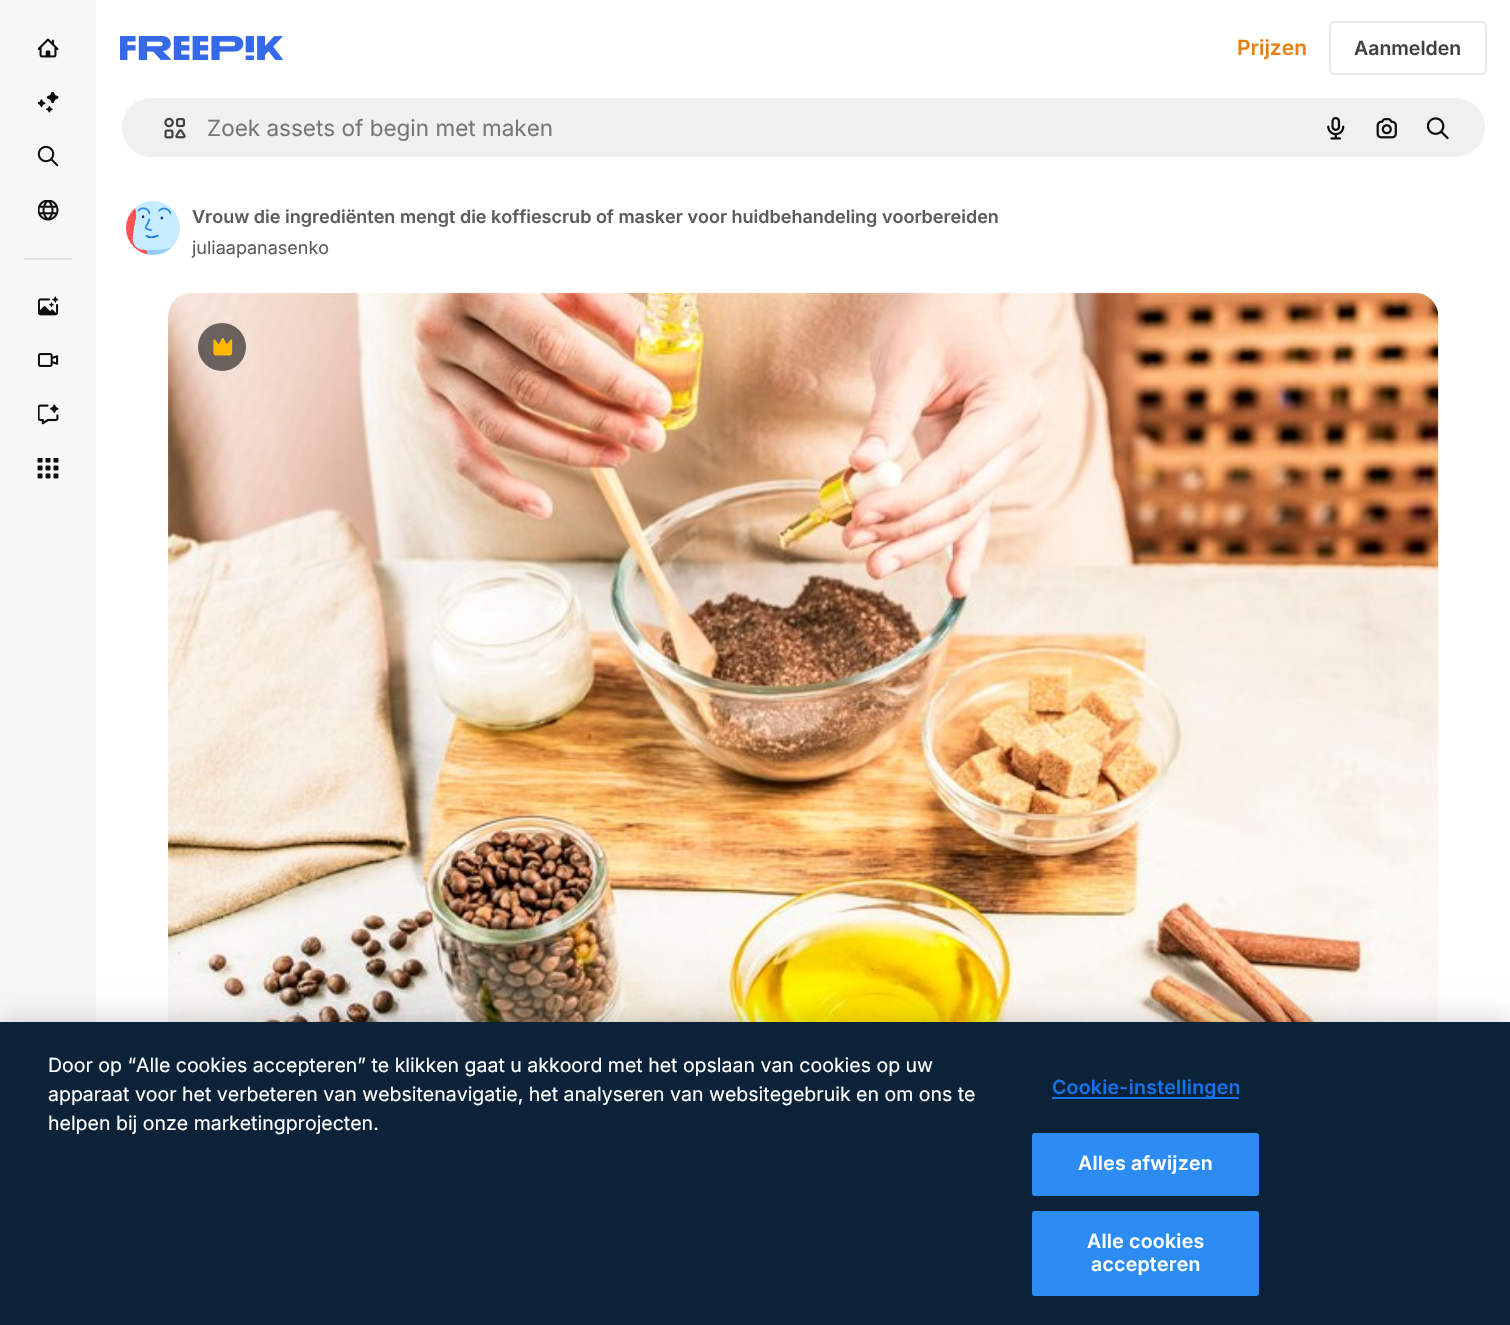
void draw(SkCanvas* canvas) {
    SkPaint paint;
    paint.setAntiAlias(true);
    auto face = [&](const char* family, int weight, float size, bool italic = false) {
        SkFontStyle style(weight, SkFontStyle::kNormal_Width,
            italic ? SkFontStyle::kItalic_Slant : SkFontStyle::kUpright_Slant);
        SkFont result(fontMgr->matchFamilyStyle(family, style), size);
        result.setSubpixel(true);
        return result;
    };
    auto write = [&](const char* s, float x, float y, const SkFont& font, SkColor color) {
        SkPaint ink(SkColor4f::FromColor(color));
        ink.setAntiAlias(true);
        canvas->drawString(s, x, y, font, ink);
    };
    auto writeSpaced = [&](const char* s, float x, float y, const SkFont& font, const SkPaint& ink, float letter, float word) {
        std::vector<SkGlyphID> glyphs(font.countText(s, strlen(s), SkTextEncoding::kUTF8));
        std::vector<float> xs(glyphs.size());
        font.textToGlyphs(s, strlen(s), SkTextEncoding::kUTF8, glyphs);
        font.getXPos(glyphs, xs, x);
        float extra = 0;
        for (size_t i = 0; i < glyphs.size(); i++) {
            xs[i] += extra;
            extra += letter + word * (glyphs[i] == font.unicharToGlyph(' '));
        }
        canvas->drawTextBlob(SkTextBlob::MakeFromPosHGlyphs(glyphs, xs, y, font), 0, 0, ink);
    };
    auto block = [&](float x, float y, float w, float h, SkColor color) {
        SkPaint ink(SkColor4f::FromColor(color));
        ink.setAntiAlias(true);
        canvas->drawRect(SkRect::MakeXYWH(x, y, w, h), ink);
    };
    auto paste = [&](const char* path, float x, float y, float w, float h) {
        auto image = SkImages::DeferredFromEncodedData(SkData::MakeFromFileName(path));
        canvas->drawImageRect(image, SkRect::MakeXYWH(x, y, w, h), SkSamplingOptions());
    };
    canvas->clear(SK_ColorWHITE);
    block(0, 0, 96, 1022, SkColorSetRGB(247, 247, 247));
    paste("pic1.png", 38, 38, 21, 20);
    paste("pic2.png", 38, 92, 21, 21);
    paste("pic3.png", 37, 146, 22, 21);
    paste("pic4.png", 38, 200, 21, 21);
    block(24, 258, 48, 2, SkColorSetRGB(224, 224, 224));
    paste("pic5.png", 38, 296, 21, 20);
    paste("pic6.png", 38, 353, 21, 14);
    paste("pic7.png", 38, 404, 21, 21);
    paste("pic8.png", 37, 458, 22, 21);
    paste("pic9.png", 120, 36, 163, 24);
    auto kFont1 = face("Inter", 600, 21);
    write("Prijzen", 1237, 55, kFont1, SkColorSetRGB(234, 126, 17));
    paint.setStyle(SkPaint::kStroke_Style);
    paint.setStrokeWidth(2);
    paint.setColor(SkColorSetRGB(231, 231, 231));
    canvas->drawRoundRect(SkRect::MakeXYWH(1330, 22, 156, 52), 5, 5, paint);
    auto kFont2 = face("Inter", 600, 19.5f);
    write("Aanmelden", 1354, 55, kFont2, SkColorSetRGB(66, 66, 66));
    paint.setStyle(SkPaint::kFill_Style);
    paint.setColor(SkColorSetRGB(240, 240, 240));
    canvas->drawRoundRect(SkRect::MakeXYWH(121, 97, 1365, 61), 30.5f, 30.5f, paint);
    paint.setStyle(SkPaint::kStroke_Style);
    paint.setColor(SK_ColorWHITE);
    canvas->drawRoundRect(SkRect::MakeXYWH(121, 97, 1365, 61), 30.5f, 30.5f, paint);
    paste("pic10.png", 164, 117, 22, 22);
    auto kFont3 = face("Inter", 400, 22.5f);
    write("Zoek assets of begin met maken", 207, 136, kFont3, SkColorSetRGB(119, 119, 119));
    paste("pic11.png", 1327, 117, 18, 23);
    paste("pic12.png", 1376, 118, 21, 21);
    paste("pic13.png", 1427, 117, 22, 23);
    paste("pic14.png", 126, 201, 54, 54);
    auto kFont4 = face("Inter", 600, 18);
    write("Vrouw die ingrediënten mengt die koffiescrub of masker voor huidbehandeling voorbereiden", 192, 223, kFont4, SkColorSetRGB(92, 92, 92));
    auto kFont5 = face("Inter", 400, 18);
    write("juliaapanasenko", 192, 254, kFont5, SkColorSetRGB(92, 92, 92));
    paste("pic15.png", 168, 292, 1271, 730);
    paint.setStyle(SkPaint::kFill_Style);
    paint.setColor(SkColorSetARGB(153, 13, 13, 13));
    canvas->drawCircle(222, 347, 24, paint);
    paste("pic16.png", 213, 338, 20, 18);
    paint.setColor(SkColorSetARGB(51, 0, 0, 0));
    paint.setMaskFilter(SkMaskFilter::MakeBlur(kNormal_SkBlurStyle, 13.5f));
    canvas->drawRect(SkRect::MakeXYWH(0, 1022, 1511, 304), paint);
    paint.setMaskFilter(nullptr);
    block(0, 1022, 1510, 303, SkColorSetRGB(11, 34, 57));
    auto kFont6 = face("Inter", 400, 19.5f);
    write("Door op “Alle cookies accepteren” te klikken gaat u akkoord met het opslaan van cookies op uw", 48, 1072, kFont6, SK_ColorWHITE);
    write("apparaat voor het verbeteren van websitenavigatie, het analyseren van websitegebruik en om ons te", 48, 1101, kFont6, SK_ColorWHITE);
    write("helpen bij onze marketingprojecten.", 48, 1130, kFont6, SK_ColorWHITE);
    block(1052, 1097, 187, 2, SkColorSetRGB(18, 115, 235));
    paint.setColor(SkColorSetRGB(18, 115, 235));
    writeSpaced("Cookie-instellingen", 1052, 1094, kFont2, paint, 0.25f, 0);
    paint.setColor(SkColorSetRGB(44, 140, 244));
    canvas->drawRoundRect(SkRect::MakeXYWH(1033, 1134, 225, 61), 2, 2, paint);
    paint.setStyle(SkPaint::kStroke_Style);
    canvas->drawRoundRect(SkRect::MakeXYWH(1033, 1134, 225, 61), 2, 2, paint);
    paint.setStyle(SkPaint::kFill_Style);
    paint.setColor(SK_ColorWHITE);
    writeSpaced("Alles afwijzen", 1078, 1170, kFont2, paint, 0.25f, 0);
    paint.setColor(SkColorSetRGB(44, 140, 244));
    canvas->drawRoundRect(SkRect::MakeXYWH(1033, 1212, 225, 83), 2, 2, paint);
    paint.setStyle(SkPaint::kStroke_Style);
    canvas->drawRoundRect(SkRect::MakeXYWH(1033, 1212, 225, 83), 2, 2, paint);
    paint.setStyle(SkPaint::kFill_Style);
    paint.setColor(SK_ColorWHITE);
    writeSpaced("Alle cookies", 1087, 1248, kFont2, paint, 0.25f, 0);
    writeSpaced("accepteren", 1091, 1271, kFont2, paint, 0.25f, 0);
}
